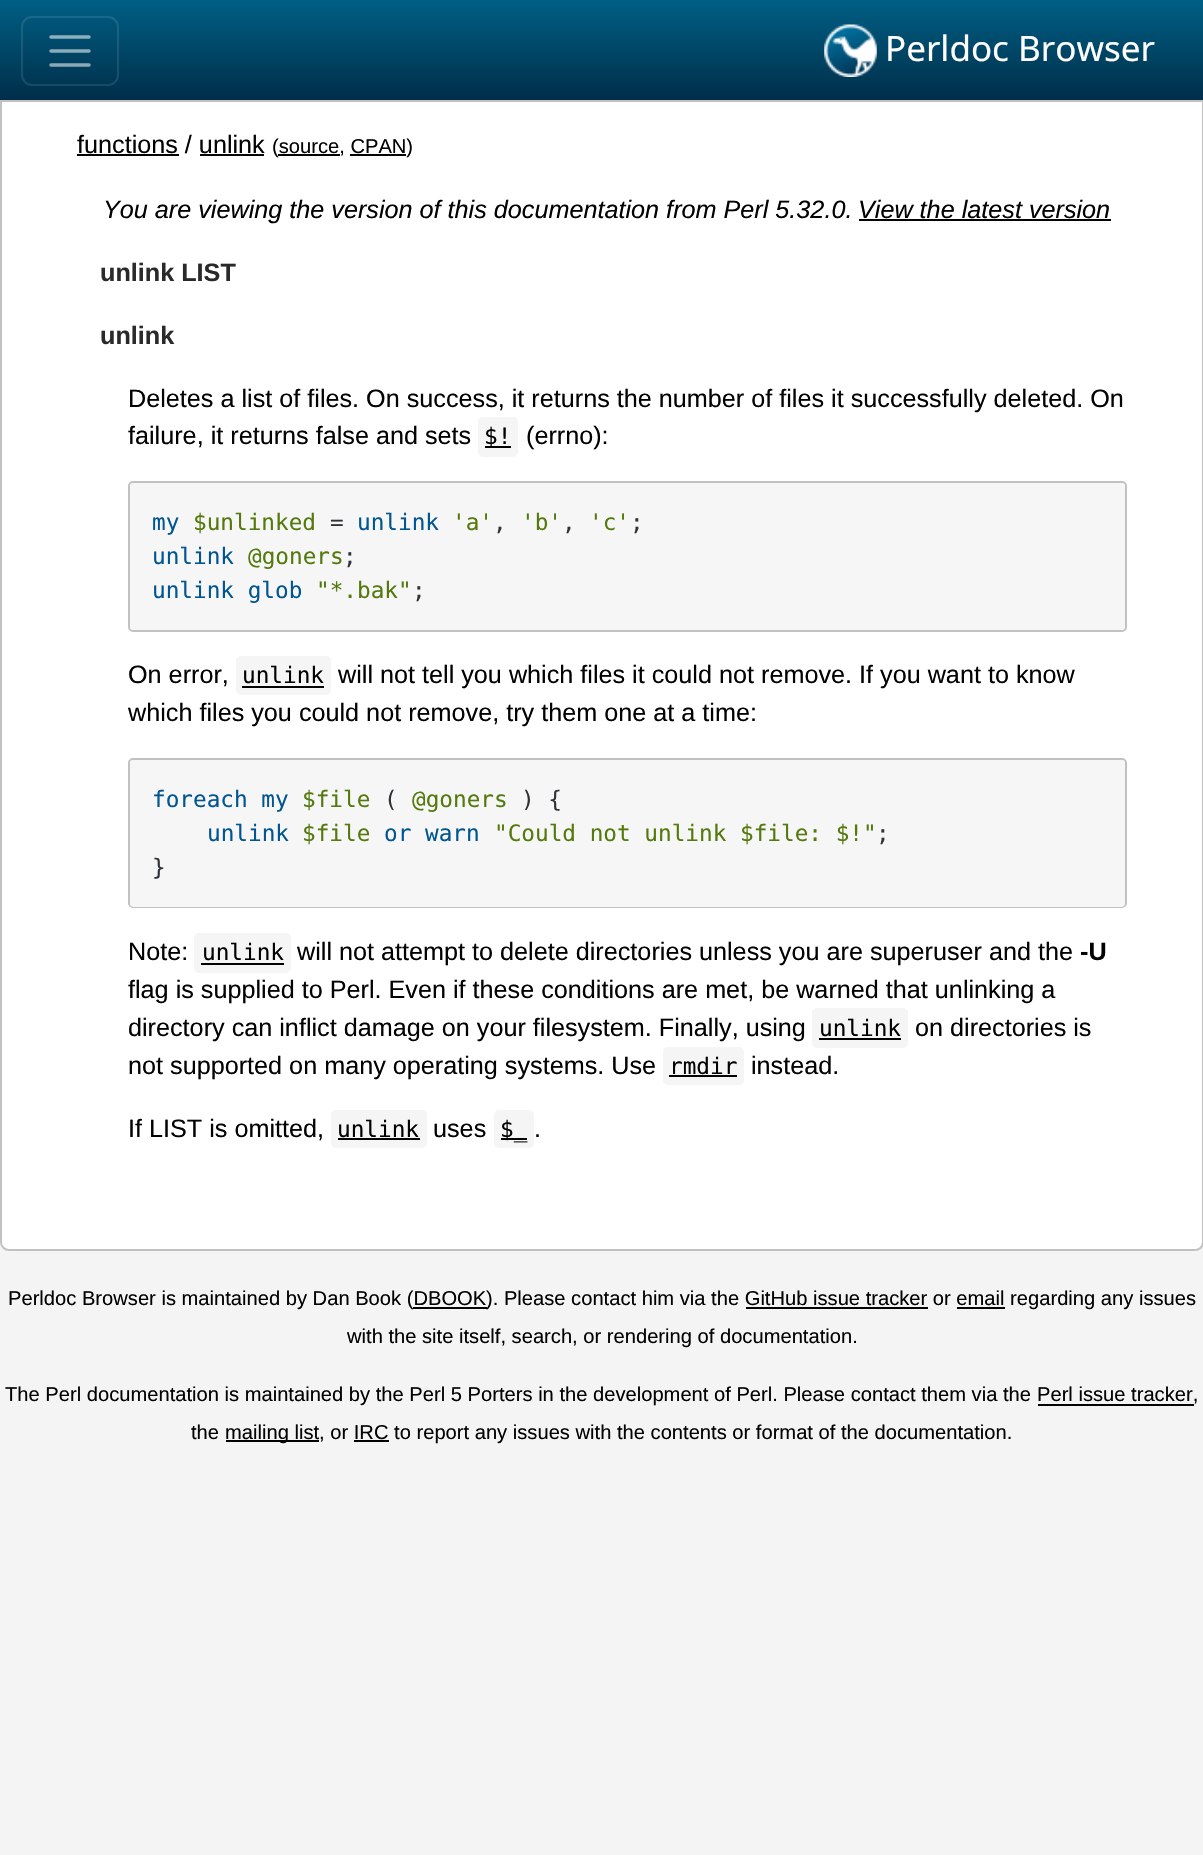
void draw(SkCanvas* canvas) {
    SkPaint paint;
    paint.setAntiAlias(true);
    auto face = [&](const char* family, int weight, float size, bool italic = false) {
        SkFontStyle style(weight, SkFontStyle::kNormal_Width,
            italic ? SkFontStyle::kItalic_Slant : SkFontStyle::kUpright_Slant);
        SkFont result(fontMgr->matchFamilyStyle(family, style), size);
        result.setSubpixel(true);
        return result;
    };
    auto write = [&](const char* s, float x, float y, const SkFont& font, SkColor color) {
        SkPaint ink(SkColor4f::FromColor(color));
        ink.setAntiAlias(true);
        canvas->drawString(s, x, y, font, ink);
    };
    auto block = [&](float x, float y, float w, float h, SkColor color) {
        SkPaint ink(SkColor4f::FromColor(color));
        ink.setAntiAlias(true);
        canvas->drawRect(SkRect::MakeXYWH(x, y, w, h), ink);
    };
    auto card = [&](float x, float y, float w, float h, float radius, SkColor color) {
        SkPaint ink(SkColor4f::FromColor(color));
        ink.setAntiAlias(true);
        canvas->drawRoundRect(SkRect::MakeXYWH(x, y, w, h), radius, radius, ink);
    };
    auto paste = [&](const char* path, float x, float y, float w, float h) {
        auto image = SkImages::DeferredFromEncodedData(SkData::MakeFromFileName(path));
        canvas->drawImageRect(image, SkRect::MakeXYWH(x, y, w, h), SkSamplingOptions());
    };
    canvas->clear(SkColorSetRGB(244, 244, 245));
    {
        const SkColor colors[] = {SkColorSetRGB(0, 95, 133), SkColorSetRGB(0, 46, 73)};
        const float stops[] = {0, 1};
        const SkPoint ends[] = {{602, 0}, {602, 100}};
        paint.setShader(SkGradientShader::MakeLinear(ends, colors, stops, 2, SkTileMode::kClamp));
        paint.setAlpha(255);
    }
    canvas->drawRect(SkRect::MakeXYWH(0, 0, 1203, 100), paint);
    paint.setStyle(SkPaint::kStroke_Style);
    paint.setStrokeWidth(2);
    paint.setShader(nullptr);
    paint.setColor(SkColorSetARGB(26, 255, 255, 255));
    canvas->drawRoundRect(SkRect::MakeXYWH(22, 17, 96, 68), 10, 10, paint);
    paint.setStrokeWidth(3.5f);
    paint.setStrokeCap(SkPaint::kRound_Cap);
    paint.setColor(SkColorSetARGB(140, 255, 255, 255));
    canvas->drawPath(SkPathBuilder().moveTo(51, 37).lineTo(89, 37).moveTo(51, 51).lineTo(89, 51).moveTo(51, 65).lineTo(89, 65).detach(), paint);
    paste("pic1.png", 824, 24, 53, 53);
    auto kFont1 = face("Noto Sans", 400, 35);
    write("Perldoc Browser", 885, 61, kFont1, SK_ColorWHITE);
    paint.setStyle(SkPaint::kFill_Style);
    paint.setColor(SK_ColorWHITE);
    canvas->drawPath(SkPathBuilder().moveTo(1, 101).lineTo(1203, 101).lineTo(1203, 1242).cubicTo(1203, 1246.5f, 1199.5f, 1250, 1195, 1250).lineTo(9, 1250).cubicTo(4.5f, 1250, 1, 1246.5f, 1, 1242).close().detach(), paint);
    paint.setStyle(SkPaint::kStroke_Style);
    paint.setStrokeWidth(2);
    paint.setStrokeCap(SkPaint::kButt_Cap);
    paint.setColor(SkColorSetRGB(193, 193, 193));
    canvas->drawPath(SkPathBuilder().moveTo(1, 101).lineTo(1203, 101).lineTo(1203, 1242).cubicTo(1203, 1246.5f, 1199.5f, 1250, 1195, 1250).lineTo(9, 1250).cubicTo(4.5f, 1250, 1, 1246.5f, 1, 1242).close().detach(), paint);
    auto kFont2 = face("Liberation Sans", 400, 25.2f);
    write("functions / unlink", 77, 153, kFont2, SkColorSetRGB(2, 2, 2));
    block(77, 154, 102, 2, SkColorSetRGB(2, 2, 2));
    auto kFont3 = face("Liberation Sans", 400, 20.15f);
    write("(source, CPAN)", 272, 153, kFont3, SkColorSetRGB(2, 2, 2));
    block(278, 154, 62, 2, SkColorSetRGB(2, 2, 2));
    block(350, 154, 56, 2, SkColorSetRGB(2, 2, 2));
    block(200, 154, 64, 2, SkColorSetRGB(2, 2, 2));
    auto kFont4 = face("Liberation Sans", 400, 25.2f, true);
    write("You are viewing the version of this documentation from Perl 5.32.0.", 103, 218, kFont4, SkColorSetRGB(2, 2, 2));
    write("View the latest version", 858, 218, kFont4, SkColorSetRGB(2, 2, 2));
    block(859, 219, 252, 2, SkColorSetRGB(2, 2, 2));
    auto kFont5 = face("Liberation Sans", 700, 25.2f);
    write("unlink LIST", 100, 281, kFont5, SkColorSetRGB(42, 42, 42));
    write("unlink", 100, 344, kFont5, SkColorSetRGB(42, 42, 42));
    write("Deletes a list of files. On success, it returns the number of files it successfully deleted. On", 128, 407, kFont2, SkColorSetRGB(2, 2, 2));
    write("failure, it returns false and sets", 128, 444, kFont2, SkColorSetRGB(2, 2, 2));
    card(478, 417, 40, 40, 5, SkColorSetRGB(245, 245, 245));
    block(485, 446, 26, 2, SkColorSetRGB(2, 2, 2));
    auto kFont6 = face("DejaVu Sans Mono", 400, 22.7f);
    write("$!", 484, 444, kFont6, SkColorSetRGB(2, 2, 2));
    write("(errno):", 526, 444, kFont2, SkColorSetRGB(2, 2, 2));
    canvas->drawRoundRect(SkRect::MakeXYWH(129, 482, 997, 149), 4, 4, paint);
    card(130, 483, 995, 147, 4, SkColorSetRGB(246, 246, 246));
    write("my", 152, 530, kFont6, SkColorSetRGB(1, 86, 146));
    write("$unlinked", 193, 530, kFont6, SkColorSetRGB(84, 121, 13));
    write("=", 330, 530, kFont6, SkColorSetRGB(47, 51, 55));
    write("unlink", 357, 530, kFont6, SkColorSetRGB(1, 86, 146));
    write("'a'", 452, 530, kFont6, SkColorSetRGB(84, 121, 13));
    write("'b'", 521, 530, kFont6, SkColorSetRGB(84, 121, 13));
    write("'c'", 589, 530, kFont6, SkColorSetRGB(84, 121, 13));
    write(";", 630, 530, kFont6, SkColorSetRGB(47, 51, 55));
    write(",", 493, 530, kFont6, SkColorSetRGB(47, 51, 55));
    write(",", 562, 530, kFont6, SkColorSetRGB(47, 51, 55));
    write("unlink", 152, 564, kFont6, SkColorSetRGB(1, 86, 146));
    write("@goners", 248, 564, kFont6, SkColorSetRGB(84, 121, 13));
    write(";", 343, 564, kFont6, SkColorSetRGB(47, 51, 55));
    write("unlink glob", 152, 598, kFont6, SkColorSetRGB(1, 86, 146));
    write("\"*.bak\"", 316, 598, kFont6, SkColorSetRGB(84, 121, 13));
    write(";", 412, 598, kFont6, SkColorSetRGB(47, 51, 55));
    write("On error,", 128, 683, kFont2, SkColorSetRGB(2, 2, 2));
    card(236, 656, 95, 39, 5, SkColorSetRGB(245, 245, 245));
    write("unlink", 242, 683, kFont6, SkColorSetRGB(2, 2, 2));
    block(242, 686, 82, 2, SkColorSetRGB(2, 2, 2));
    write("will not tell you which files it could not remove. If you want to know", 338, 683, kFont2, SkColorSetRGB(2, 2, 2));
    write("which files you could not remove, try them one at a time:", 128, 721, kFont2, SkColorSetRGB(2, 2, 2));
    canvas->drawRoundRect(SkRect::MakeXYWH(129, 759, 997, 148), 4, 4, paint);
    card(130, 760, 995, 147, 4, SkColorSetRGB(246, 246, 246));
    write("foreach my", 152, 807, kFont6, SkColorSetRGB(1, 86, 146));
    write("$file", 302, 807, kFont6, SkColorSetRGB(84, 121, 13));
    write("(", 384, 807, kFont6, SkColorSetRGB(47, 51, 55));
    write("@goners", 412, 807, kFont6, SkColorSetRGB(84, 121, 13));
    write(") {", 521, 807, kFont6, SkColorSetRGB(47, 51, 55));
    write("unlink", 207, 841, kFont6, SkColorSetRGB(1, 86, 146));
    write("$file", 302, 841, kFont6, SkColorSetRGB(84, 121, 13));
    write("or warn", 384, 841, kFont6, SkColorSetRGB(1, 86, 146));
    write("\"Could not unlink $file: $!\"", 494, 841, kFont6, SkColorSetRGB(84, 121, 13));
    write(";", 876, 841, kFont6, SkColorSetRGB(47, 51, 55));
    write("}", 152, 875, kFont6, SkColorSetRGB(47, 51, 55));
    write("Note:", 128, 960, kFont2, SkColorSetRGB(2, 2, 2));
    card(194, 933, 97, 40, 5, SkColorSetRGB(245, 245, 245));
    write("unlink", 202, 960, kFont6, SkColorSetRGB(2, 2, 2));
    block(201, 963, 83, 2, SkColorSetRGB(2, 2, 2));
    write("will not attempt to delete directories unless you are superuser and the", 297, 960, kFont2, SkColorSetRGB(2, 2, 2));
    write("-U", 1080, 960, kFont5, SkColorSetRGB(2, 2, 2));
    write("flag is supplied to Perl. Even if these conditions are met, be warned that unlinking a", 128, 998, kFont2, SkColorSetRGB(2, 2, 2));
    write("directory can inflict damage on your filesystem. Finally, using", 128, 1036, kFont2, SkColorSetRGB(2, 2, 2));
    card(812, 1008, 96, 40, 5, SkColorSetRGB(245, 245, 245));
    write("unlink", 819, 1036, kFont6, SkColorSetRGB(2, 2, 2));
    block(819, 1038, 82, 2, SkColorSetRGB(2, 2, 2));
    write("on directories is", 915, 1036, kFont2, SkColorSetRGB(2, 2, 2));
    write("not supported on many operating systems. Use", 128, 1074, kFont2, SkColorSetRGB(2, 2, 2));
    card(663, 1047, 81, 38, 5, SkColorSetRGB(245, 245, 245));
    write("rmdir", 669, 1074, kFont6, SkColorSetRGB(2, 2, 2));
    block(669, 1075, 68, 2, SkColorSetRGB(2, 2, 2));
    write("instead.", 751, 1074, kFont2, SkColorSetRGB(2, 2, 2));
    write("If LIST is omitted,", 128, 1137, kFont2, SkColorSetRGB(2, 2, 2));
    card(331, 1110, 96, 38, 5, SkColorSetRGB(245, 245, 245));
    write("unlink", 337, 1137, kFont6, SkColorSetRGB(2, 2, 2));
    block(338, 1138, 82, 2, SkColorSetRGB(2, 2, 2));
    write("uses", 433, 1137, kFont2, SkColorSetRGB(2, 2, 2));
    card(494, 1110, 40, 38, 5, SkColorSetRGB(245, 245, 245));
    block(501, 1138, 26, 2, SkColorSetRGB(2, 2, 2));
    write("$_", 500, 1137, kFont6, SkColorSetRGB(2, 2, 2));
    write(".", 534, 1137, kFont2, SkColorSetRGB(2, 2, 2));
    write("Perldoc Browser is maintained by Dan Book (DBOOK", 8, 1305, kFont3, SkColorSetRGB(2, 2, 2));
    block(413, 1307, 74, 2, SkColorSetRGB(2, 2, 2));
    write("). Please contact him via the GitHub issue tracker or email regarding any issues", 486, 1305, kFont3, SkColorSetRGB(2, 2, 2));
    block(746, 1307, 182, 2, SkColorSetRGB(2, 2, 2));
    block(957, 1307, 48, 2, SkColorSetRGB(2, 2, 2));
    write("with the site itself, search, or rendering of documentation.", 347, 1343, kFont3, SkColorSetRGB(2, 2, 2));
    write("The Perl documentation is maintained by the Perl 5 Porters in the development of Perl. Please contact them via the", 5, 1401, kFont3, SkColorSetRGB(2, 2, 2));
    write("Perl issue tracker,", 1037, 1401, kFont3, SkColorSetRGB(2, 2, 2));
    block(1038, 1404, 156, 2, SkColorSetRGB(2, 2, 2));
    write("the", 191, 1439, kFont3, SkColorSetRGB(2, 2, 2));
    block(226, 1440, 93, 2, SkColorSetRGB(2, 2, 2));
    write("mailing list, or IRC to report any issues with the contents or format of the documentation.", 225, 1439, kFont3, SkColorSetRGB(2, 2, 2));
    block(354, 1440, 35, 2, SkColorSetRGB(2, 2, 2));
}
